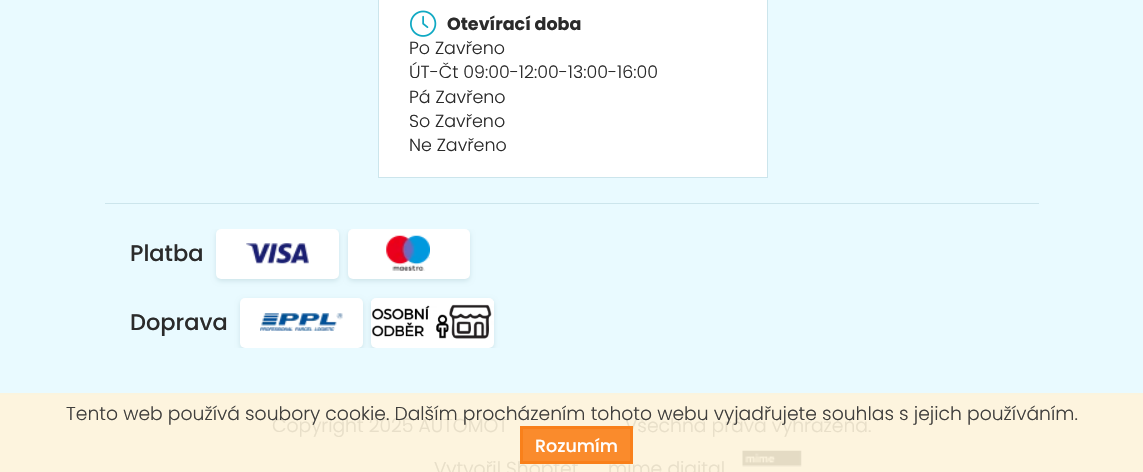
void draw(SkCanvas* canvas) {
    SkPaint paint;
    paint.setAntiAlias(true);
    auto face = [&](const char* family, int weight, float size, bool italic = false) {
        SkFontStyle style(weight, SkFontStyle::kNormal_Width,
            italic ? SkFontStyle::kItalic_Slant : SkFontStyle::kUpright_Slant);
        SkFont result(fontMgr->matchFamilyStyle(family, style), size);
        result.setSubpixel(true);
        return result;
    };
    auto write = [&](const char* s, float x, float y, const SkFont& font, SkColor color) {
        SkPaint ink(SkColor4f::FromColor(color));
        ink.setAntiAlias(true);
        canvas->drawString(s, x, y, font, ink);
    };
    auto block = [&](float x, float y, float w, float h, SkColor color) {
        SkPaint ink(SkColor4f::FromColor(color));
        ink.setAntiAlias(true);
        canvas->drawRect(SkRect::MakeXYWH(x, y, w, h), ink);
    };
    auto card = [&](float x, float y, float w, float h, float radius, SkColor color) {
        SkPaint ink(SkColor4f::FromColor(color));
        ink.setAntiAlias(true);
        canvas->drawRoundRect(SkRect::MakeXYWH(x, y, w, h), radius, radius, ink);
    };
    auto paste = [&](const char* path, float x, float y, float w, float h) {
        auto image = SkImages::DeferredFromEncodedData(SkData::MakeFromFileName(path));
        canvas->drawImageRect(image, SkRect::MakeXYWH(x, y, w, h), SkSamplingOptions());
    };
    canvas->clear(SkColorSetRGB(233, 250, 255));
    block(0, 393, 1143, 2, SkColorSetRGB(251, 244, 222));
    paint.setColor(SK_ColorWHITE);
    canvas->drawRect(SkRect::MakeXYWH(378.5f, -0.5f, 389, 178), paint);
    paint.setStyle(SkPaint::kStroke_Style);
    paint.setStrokeWidth(1);
    paint.setColor(SkColorSetRGB(204, 229, 236));
    canvas->drawRect(SkRect::MakeXYWH(378.5f, -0.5f, 389, 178), paint);
    paste("pic1.png", 410, 10, 27, 27);
    auto kFont1 = face("Poppins", 700, 17.5f);
    write("Otevírací doba", 447, 30, kFont1, SkColorSetRGB(43, 43, 43));
    auto kFont2 = face("Poppins", 300, 17.5f);
    write("Po Zavřeno", 409, 54, kFont2, SkColorSetRGB(43, 43, 43));
    write("ÚT-Čt 09:00-12:00-13:00-16:00", 409, 78, kFont2, SkColorSetRGB(43, 43, 43));
    write("Pá Zavřeno", 409, 103, kFont2, SkColorSetRGB(43, 43, 43));
    write("So Zavřeno", 409, 127, kFont2, SkColorSetRGB(43, 43, 43));
    write("Ne Zavřeno", 409, 151, kFont2, SkColorSetRGB(43, 43, 43));
    block(105, 203, 934, 1, SkColorSetRGB(204, 229, 236));
    auto kFont3 = face("Poppins", 500, 22.5f);
    write("Platba", 130, 261, kFont3, SkColorSetRGB(43, 43, 43));
    canvas->save();
    canvas->clipRect(SkRect::MakeXYWH(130, 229, 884, 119));
    paint.setStyle(SkPaint::kFill_Style);
    paint.setColor(SkColorSetRGB(205, 228, 234));
    paint.setMaskFilter(SkMaskFilter::MakeBlur(kNormal_SkBlurStyle, 2.5f));
    canvas->drawRoundRect(SkRect::MakeXYWH(216, 231, 123, 50), 5, 5, paint);
    paint.setMaskFilter(nullptr);
    canvas->restore();
    card(216, 229, 123, 50, 5, SK_ColorWHITE);
    paste("pic2.png", 246, 243, 63, 21);
    canvas->save();
    canvas->clipRect(SkRect::MakeXYWH(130, 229, 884, 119));
    paint.setMaskFilter(SkMaskFilter::MakeBlur(kNormal_SkBlurStyle, 2.5f));
    canvas->drawRoundRect(SkRect::MakeXYWH(348, 231, 122, 50), 5, 5, paint);
    paint.setMaskFilter(nullptr);
    canvas->restore();
    card(348, 229, 122, 50, 5, SK_ColorWHITE);
    paste("pic3.png", 386, 235, 44, 36);
    write("Doprava", 130, 330, kFont3, SkColorSetRGB(43, 43, 43));
    canvas->save();
    canvas->clipRect(SkRect::MakeXYWH(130, 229, 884, 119));
    paint.setMaskFilter(SkMaskFilter::MakeBlur(kNormal_SkBlurStyle, 2.5f));
    canvas->drawRoundRect(SkRect::MakeXYWH(240, 300, 123, 50), 5, 5, paint);
    paint.setMaskFilter(nullptr);
    canvas->restore();
    card(240, 298, 123, 50, 5, SK_ColorWHITE);
    paste("pic4.png", 260, 313, 83, 18);
    canvas->save();
    canvas->clipRect(SkRect::MakeXYWH(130, 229, 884, 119));
    paint.setMaskFilter(SkMaskFilter::MakeBlur(kNormal_SkBlurStyle, 2.5f));
    canvas->drawRoundRect(SkRect::MakeXYWH(371, 300, 123, 50), 5, 5, paint);
    paint.setMaskFilter(nullptr);
    canvas->restore();
    card(371, 298, 123, 50, 5, SK_ColorWHITE);
    paste("pic5.png", 371, 301, 123, 38);
    block(0, 395, 1143, 77, SkColorSetRGB(253, 244, 222));
    auto kFont4 = face("Poppins", 300, 18.75f);
    write("Copyright 2025 AUTOMOT", 272, 432, kFont4, SkColorSetRGB(232, 223, 201));
    write("Všechna práva vyhrazena.", 625, 432, kFont4, SkColorSetRGB(232, 223, 201));
    write("Vytvořil Shoptet", 434, 475, kFont4, SkColorSetRGB(232, 223, 201));
    write("mime digital", 608, 475, kFont4, SkColorSetRGB(232, 223, 201));
    paste("pic6.png", 742, 450, 60, 17);
    write("Tento web používá soubory cookie. Dalším procházením tohoto webu vyjadřujete souhlas s jejich používáním.", 66, 420, kFont4, SkColorSetRGB(64, 63, 61));
    paint.setColor(SkColorSetARGB(230, 249, 127, 24));
    canvas->drawRect(SkRect::MakeXYWH(521.5f, 427.5f, 110, 35), paint);
    paint.setStyle(SkPaint::kStroke_Style);
    paint.setStrokeWidth(3);
    paint.setColor(SkColorSetRGB(249, 128, 26));
    canvas->drawRect(SkRect::MakeXYWH(521.5f, 427.5f, 110, 35), paint);
    auto kFont5 = face("Poppins", 500, 17.5f);
    write("Rozumím", 535, 452, kFont5, SK_ColorWHITE);
}
